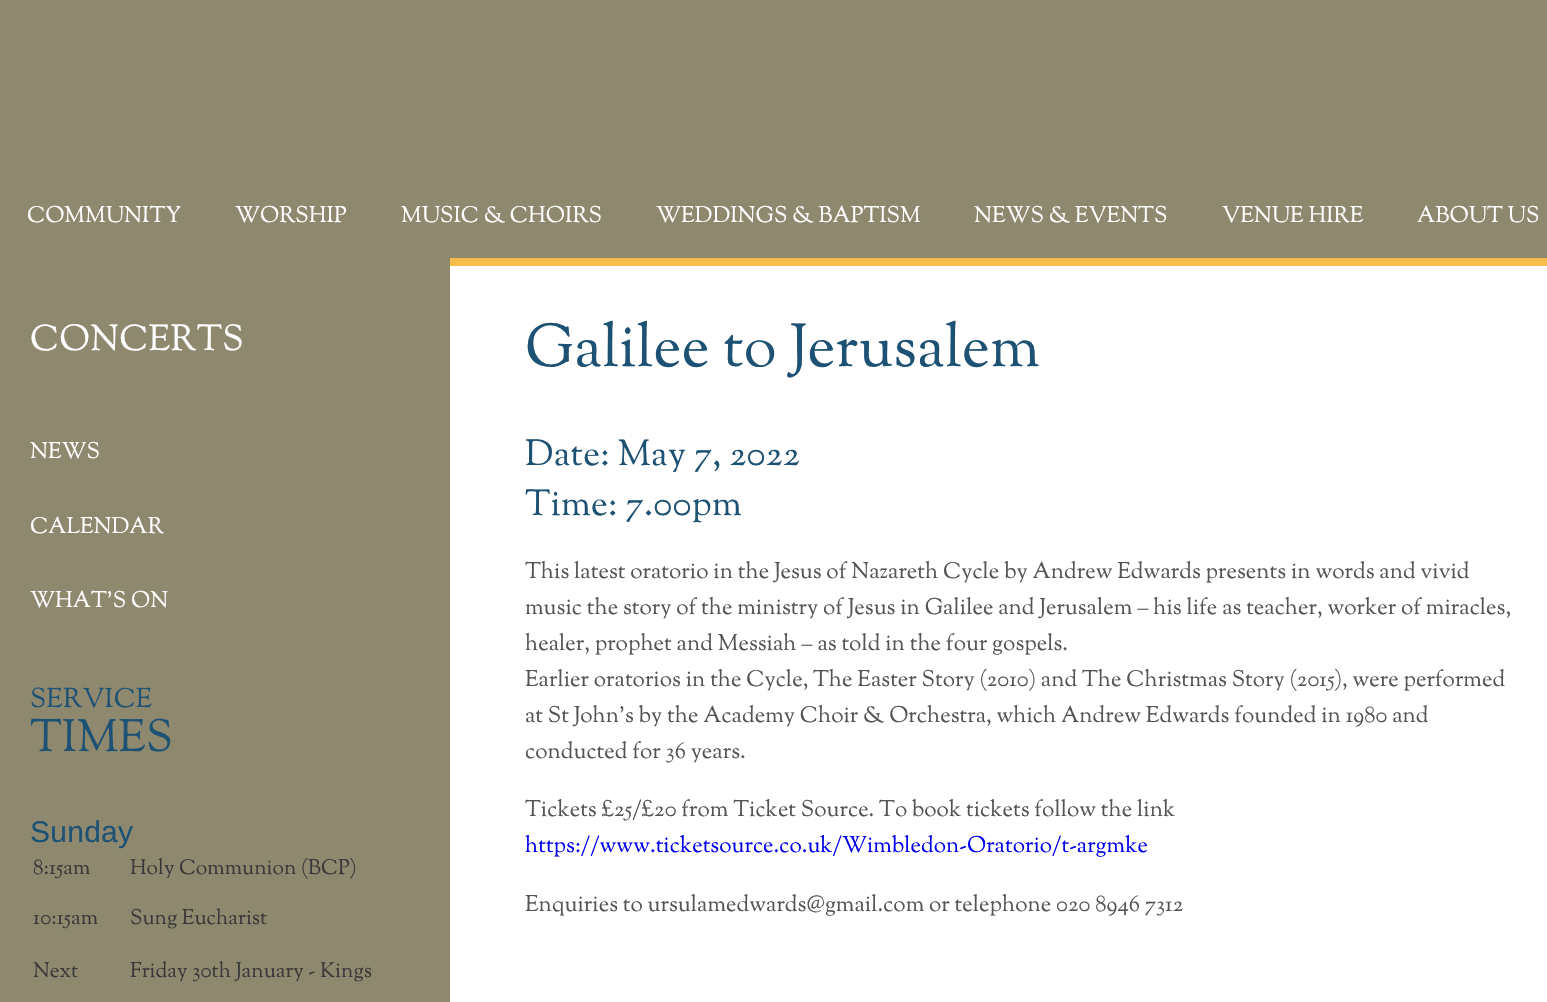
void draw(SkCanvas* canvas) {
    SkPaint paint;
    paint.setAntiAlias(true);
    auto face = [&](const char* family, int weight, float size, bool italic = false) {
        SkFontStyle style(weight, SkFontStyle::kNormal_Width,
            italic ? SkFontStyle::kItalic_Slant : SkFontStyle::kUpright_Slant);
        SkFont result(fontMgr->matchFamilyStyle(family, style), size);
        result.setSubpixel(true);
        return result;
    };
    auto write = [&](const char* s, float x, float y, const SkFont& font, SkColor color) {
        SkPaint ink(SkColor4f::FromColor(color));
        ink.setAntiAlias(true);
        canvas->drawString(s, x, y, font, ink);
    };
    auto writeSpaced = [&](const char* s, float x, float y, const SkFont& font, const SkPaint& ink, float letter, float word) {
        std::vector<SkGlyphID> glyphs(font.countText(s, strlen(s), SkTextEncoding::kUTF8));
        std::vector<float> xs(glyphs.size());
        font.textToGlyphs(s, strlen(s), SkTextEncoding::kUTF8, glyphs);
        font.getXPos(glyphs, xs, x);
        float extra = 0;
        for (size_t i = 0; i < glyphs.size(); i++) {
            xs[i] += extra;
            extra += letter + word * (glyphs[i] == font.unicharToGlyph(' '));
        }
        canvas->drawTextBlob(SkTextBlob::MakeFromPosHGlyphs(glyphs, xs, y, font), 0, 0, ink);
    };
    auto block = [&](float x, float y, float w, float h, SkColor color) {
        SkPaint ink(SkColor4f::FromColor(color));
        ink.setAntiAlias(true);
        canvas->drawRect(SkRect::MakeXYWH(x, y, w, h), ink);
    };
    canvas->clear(SkColorSetRGB(142, 136, 111));
    auto kFont1 = face("Sorts Mill Goudy", 400, 22.5f);
    write("COMMUNITY", 27, 222, kFont1, SK_ColorWHITE);
    write("WORSHIP", 235, 222, kFont1, SK_ColorWHITE);
    write("MUSIC & CHOIRS", 401, 222, kFont1, SK_ColorWHITE);
    write("WEDDINGS & BAPTISM", 656, 222, kFont1, SK_ColorWHITE);
    write("NEWS & EVENTS", 974, 222, kFont1, SK_ColorWHITE);
    write("VENUE HIRE", 1222, 222, kFont1, SK_ColorWHITE);
    write("ABOUT US", 1417, 222, kFont1, SK_ColorWHITE);
    auto kFont2 = face("Sorts Mill Goudy", 400, 36);
    paint.setColor(SK_ColorWHITE);
    writeSpaced("CONCERTS", 30, 350, kFont2, paint, 0.25f, 0);
    write("NEWS", 30, 458, kFont1, SK_ColorWHITE);
    write("CALENDAR", 30, 533, kFont1, SK_ColorWHITE);
    write("WHAT’S ON", 30, 607, kFont1, SK_ColorWHITE);
    auto kFont3 = face("Sorts Mill Goudy", 400, 27);
    paint.setColor(SkColorSetRGB(29, 82, 116));
    writeSpaced("SERVICE", 30, 707, kFont3, paint, 0.25f, 0);
    auto kFont4 = face("Sorts Mill Goudy", 400, 45);
    writeSpaced("TIMES", 30, 751, kFont4, paint, 0.25f, 0);
    auto kFont5 = face("Liberation Sans", 400, 30);
    writeSpaced("Sunday", 30, 842, kFont5, paint, 0.25f, 0);
    auto kFont6 = face("Sorts Mill Goudy", 400, 21);
    write("8:15am", 33, 874, kFont6, SkColorSetRGB(56, 56, 56));
    write("Holy Communion (BCP)", 130, 874, kFont6, SkColorSetRGB(56, 56, 56));
    write("10:15am", 33, 924, kFont6, SkColorSetRGB(56, 56, 56));
    write("Sung Eucharist", 130, 924, kFont6, SkColorSetRGB(56, 56, 56));
    write("Next", 33, 977, kFont6, SkColorSetRGB(56, 56, 56));
    write("Friday 30th January - Kings", 130, 977, kFont6, SkColorSetRGB(56, 56, 56));
    block(450, 266, 1097, 736, SK_ColorWHITE);
    block(450, 258, 1097, 8, SkColorSetRGB(247, 189, 74));
    auto kFont7 = face("Sorts Mill Goudy", 400, 60);
    writeSpaced("Galilee to Jerusalem", 525, 366, kFont7, paint, 0.25f, 0);
    writeSpaced("Date: May 7, 2022", 525, 465, kFont2, paint, 0.25f, 0);
    writeSpaced("Time: 7.00pm", 525, 515, kFont2, paint, 0.25f, 0);
    write("This latest oratorio in the Jesus of Nazareth Cycle by Andrew Edwards presents in words and vivid", 525, 578, kFont1, SkColorSetRGB(84, 84, 84));
    write("music the story of the ministry of Jesus in Galilee and Jerusalem – his life as teacher, worker of miracles,", 525, 614, kFont1, SkColorSetRGB(84, 84, 84));
    write("healer, prophet and Messiah – as told in the four gospels.", 525, 650, kFont1, SkColorSetRGB(84, 84, 84));
    write("Earlier oratorios in the Cycle, The Easter Story (2010) and The Christmas Story (2015), were performed", 525, 686, kFont1, SkColorSetRGB(84, 84, 84));
    write("at St John’s by the Academy Choir & Orchestra, which Andrew Edwards founded in 1980 and", 525, 722, kFont1, SkColorSetRGB(84, 84, 84));
    write("conducted for 36 years.", 525, 758, kFont1, SkColorSetRGB(84, 84, 84));
    write("Tickets £25/£20 from Ticket Source. To book tickets follow the link", 525, 816, kFont1, SkColorSetRGB(84, 84, 84));
    write("https://www.ticketsource.co.uk/Wimbledon-Oratorio/t-argmke", 525, 852, kFont1, SkColorSetRGB(0, 0, 238));
    write("Enquiries to ursulamedwards@gmail.com or telephone 020 8946 7312", 525, 911, kFont1, SkColorSetRGB(84, 84, 84));
}
